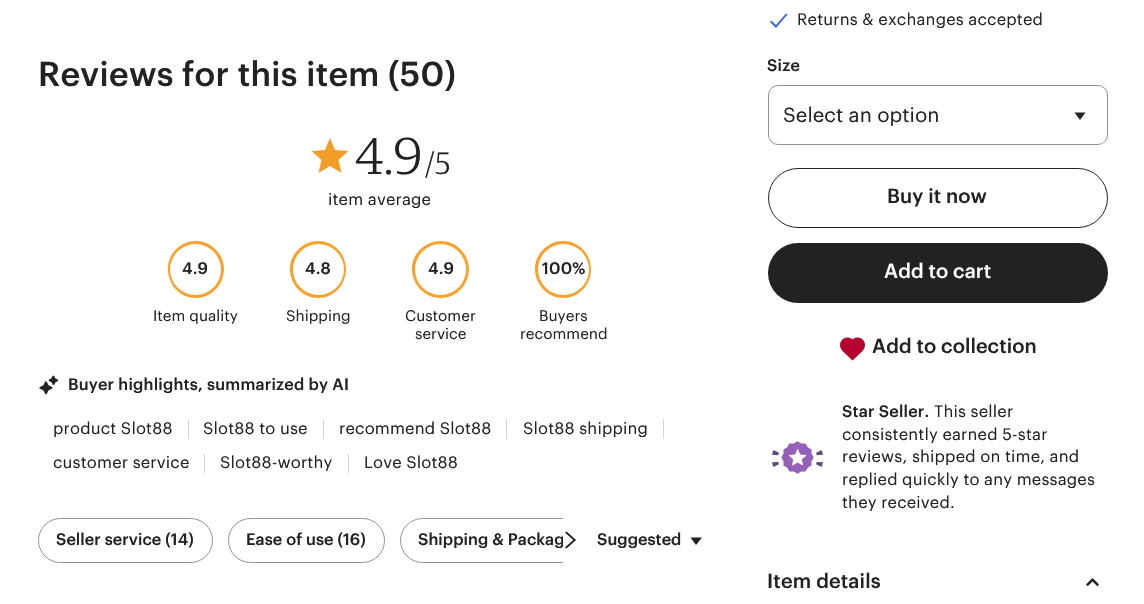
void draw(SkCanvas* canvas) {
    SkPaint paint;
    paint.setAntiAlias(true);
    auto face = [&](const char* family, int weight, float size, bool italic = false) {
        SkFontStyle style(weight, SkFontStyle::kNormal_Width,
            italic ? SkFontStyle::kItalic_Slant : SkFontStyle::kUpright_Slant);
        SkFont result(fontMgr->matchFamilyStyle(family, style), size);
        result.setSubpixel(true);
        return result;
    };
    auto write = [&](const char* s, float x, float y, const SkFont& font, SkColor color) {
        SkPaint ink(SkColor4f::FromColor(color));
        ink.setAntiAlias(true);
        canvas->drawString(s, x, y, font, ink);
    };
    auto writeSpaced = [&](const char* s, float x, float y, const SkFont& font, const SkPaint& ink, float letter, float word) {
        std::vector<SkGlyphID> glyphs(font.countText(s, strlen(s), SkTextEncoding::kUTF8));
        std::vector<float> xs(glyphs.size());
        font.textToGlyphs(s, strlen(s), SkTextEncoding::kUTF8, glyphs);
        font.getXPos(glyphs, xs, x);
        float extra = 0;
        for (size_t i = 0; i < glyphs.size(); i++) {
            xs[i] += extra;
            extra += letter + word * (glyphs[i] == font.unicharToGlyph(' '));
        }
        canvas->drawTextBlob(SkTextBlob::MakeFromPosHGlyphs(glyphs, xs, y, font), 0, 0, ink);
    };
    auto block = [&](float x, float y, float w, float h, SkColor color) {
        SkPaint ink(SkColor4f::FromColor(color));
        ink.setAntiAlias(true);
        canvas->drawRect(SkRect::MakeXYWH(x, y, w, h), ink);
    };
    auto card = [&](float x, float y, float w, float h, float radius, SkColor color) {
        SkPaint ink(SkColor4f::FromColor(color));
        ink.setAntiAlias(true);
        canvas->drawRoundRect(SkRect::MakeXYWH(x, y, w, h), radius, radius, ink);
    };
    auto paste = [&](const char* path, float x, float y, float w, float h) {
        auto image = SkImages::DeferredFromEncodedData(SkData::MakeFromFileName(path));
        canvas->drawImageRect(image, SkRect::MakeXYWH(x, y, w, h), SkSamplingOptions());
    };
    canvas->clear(SK_ColorWHITE);
    auto kFont1 = face("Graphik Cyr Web", 500, 33.75f);
    paint.setColor(SkColorSetRGB(34, 34, 34));
    writeSpaced("Reviews for this item (50)", 38, 86, kFont1, paint, 0.2f, 0);
    paint.setColor(SkColorSetRGB(241, 157, 39));
    canvas->drawPath(SkPathBuilder().moveTo(335, 150).lineTo(330, 138).lineTo(325, 150).lineTo(311.5f, 151).lineTo(321.5f, 160).lineTo(318.5f, 173).lineTo(330, 166).lineTo(341.5f, 173).lineTo(338.5f, 160).lineTo(348.5f, 151).close().detach(), paint);
    auto kFont2 = face("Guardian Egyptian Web", 300, 52);
    write("4.9", 355, 174, kFont2, SkColorSetRGB(34, 34, 34));
    auto kFont3 = face("Guardian Egyptian Web", 300, 31);
    write("/5", 425, 174, kFont3, SkColorSetRGB(34, 34, 34));
    auto kFont4 = face("Graphik Cyr Web", 400, 16.25f);
    paint.setColor(SkColorSetRGB(34, 34, 34));
    writeSpaced("item average", 328, 205, kFont4, paint, 0.15f, 0);
    paint.setColor(SkColorSetRGB(250, 161, 41));
    canvas->drawPath(SkPathBuilder().moveTo(196, 269).lineTo(196, 241).cubicTo(211, 241, 224, 254, 224, 269).cubicTo(224, 285, 211, 298, 196, 298).cubicTo(180, 298, 168, 285, 168, 269).cubicTo(168, 254, 180, 241, 196, 241).close().detach(), paint);
    paint.setColor(SK_ColorWHITE);
    canvas->drawCircle(195.5f, 269.5f, 25.5f, paint);
    auto kFont5 = face("Graphik Cyr Web", 500, 16.25f);
    paint.setColor(SkColorSetRGB(34, 34, 34));
    writeSpaced("4.9", 182, 274, kFont5, paint, 0.15f, 0);
    auto kFont6 = face("Graphik Cyr Web", 400, 15);
    write("Item quality", 153, 321, kFont6, SkColorSetRGB(34, 34, 34));
    paint.setColor(SkColorSetRGB(250, 161, 41));
    canvas->drawPath(SkPathBuilder().moveTo(318, 269).lineTo(318, 241).cubicTo(334, 241, 346, 254, 346, 269).cubicTo(346, 285, 334, 298, 318, 298).cubicTo(303, 298, 290, 285, 290, 269).cubicTo(290, 254, 303, 241, 318, 241).close().detach(), paint);
    paint.setColor(SK_ColorWHITE);
    canvas->drawCircle(318.5f, 269.5f, 25.5f, paint);
    paint.setColor(SkColorSetRGB(34, 34, 34));
    writeSpaced("4.8", 305, 274, kFont5, paint, 0.15f, 0);
    write("Shipping", 286, 321, kFont6, SkColorSetRGB(34, 34, 34));
    paint.setColor(SkColorSetRGB(250, 161, 41));
    canvas->drawPath(SkPathBuilder().moveTo(441, 269).lineTo(441, 241).cubicTo(456, 241, 469, 254, 469, 269).cubicTo(469, 285, 456, 298, 441, 298).cubicTo(425, 298, 412, 285, 412, 269).cubicTo(412, 254, 425, 241, 441, 241).close().detach(), paint);
    paint.setColor(SK_ColorWHITE);
    canvas->drawCircle(440.5f, 269.5f, 25.5f, paint);
    paint.setColor(SkColorSetRGB(34, 34, 34));
    writeSpaced("4.9", 428, 274, kFont5, paint, 0.15f, 0);
    write("Customer", 405, 321, kFont6, SkColorSetRGB(34, 34, 34));
    write("service", 415, 339, kFont6, SkColorSetRGB(34, 34, 34));
    paint.setColor(SkColorSetRGB(250, 161, 41));
    canvas->drawPath(SkPathBuilder().moveTo(563, 269).lineTo(563, 241).cubicTo(579, 241, 591, 254, 591, 269).cubicTo(591, 285, 579, 298, 563, 298).cubicTo(548, 298, 535, 285, 535, 269).cubicTo(535, 254, 548, 241, 563, 241).close().detach(), paint);
    paint.setColor(SK_ColorWHITE);
    canvas->drawCircle(563.5f, 269.5f, 25.5f, paint);
    paint.setColor(SkColorSetRGB(34, 34, 34));
    writeSpaced("100%", 542, 274, kFont5, paint, 0.15f, 0);
    write("Buyers", 539, 321, kFont6, SkColorSetRGB(34, 34, 34));
    write("recommend", 520, 339, kFont6, SkColorSetRGB(34, 34, 34));
    paste("pic1.png", 39, 375, 20, 20);
    writeSpaced("Buyer highlights, summarized by AI", 68, 390, kFont5, paint, 0.15f, 0);
    block(188, 419, 1, 20, SkColorSetRGB(212, 212, 212));
    writeSpaced("product Slot88", 53, 434, kFont4, paint, 0.15f, 0);
    block(323, 419, 1, 20, SkColorSetRGB(212, 212, 212));
    writeSpaced("Slot88 to use", 203, 434, kFont4, paint, 0.15f, 0);
    block(506, 419, 1, 20, SkColorSetRGB(212, 212, 212));
    writeSpaced("recommend Slot88", 339, 434, kFont4, paint, 0.15f, 0);
    block(663, 419, 1, 20, SkColorSetRGB(212, 212, 212));
    writeSpaced("Slot88 shipping", 523, 434, kFont4, paint, 0.15f, 0);
    block(204, 454, 1, 19, SkColorSetRGB(212, 212, 212));
    writeSpaced("customer service", 53, 468, kFont4, paint, 0.15f, 0);
    block(348, 454, 1, 19, SkColorSetRGB(212, 212, 212));
    writeSpaced("Slot88-worthy", 220, 468, kFont4, paint, 0.15f, 0);
    writeSpaced("Love Slot88", 364, 468, kFont4, paint, 0.15f, 0);
    paint.setStyle(SkPaint::kStroke_Style);
    paint.setStrokeWidth(1);
    paint.setColor(SkColorSetRGB(148, 148, 148));
    canvas->drawRoundRect(SkRect::MakeXYWH(38.5f, 518.5f, 174, 44), 22, 22, paint);
    write("Seller service (14)", 56, 545, kFont5, SkColorSetRGB(34, 34, 34));
    canvas->drawRoundRect(SkRect::MakeXYWH(228.5f, 518.5f, 156, 44), 22, 22, paint);
    write("Ease of use (16)", 246, 545, kFont5, SkColorSetRGB(34, 34, 34));
    canvas->save();
    canvas->clipRect(SkRect::MakeXYWH(30, 495, 533, 90));
    canvas->drawRoundRect(SkRect::MakeXYWH(400.5f, 518.5f, 237, 44), 22, 22, paint);
    write("Shipping & Packag", 418, 545, kFont5, SkColorSetRGB(34, 34, 34));
    canvas->restore();
    paste("pic2.png", 565, 531, 11, 18);
    write("Suggested", 597, 545, kFont5, SkColorSetRGB(34, 34, 34));
    paint.setStyle(SkPaint::kFill_Style);
    paint.setColor(SkColorSetRGB(34, 34, 34));
    canvas->drawPath(SkPathBuilder().moveTo(702, 537.5f).lineTo(696, 545).lineTo(690.5f, 537.5f).close().detach(), paint);
    paint.setColor(SkColorSetRGB(59, 103, 217));
    canvas->drawPath(SkPathBuilder().moveTo(776, 28).lineTo(787.5f, 14.5f).lineTo(786, 13.5f).lineTo(776, 25).lineTo(771.5f, 20.5f).lineTo(770, 22).close().detach(), paint);
    paint.setColor(SkColorSetRGB(34, 34, 34));
    writeSpaced("Returns & exchanges accepted", 797, 25, kFont4, paint, 0.15f, 0);
    writeSpaced("Size", 767, 71, kFont5, paint, 0.15f, 0);
    paint.setStyle(SkPaint::kStroke_Style);
    paint.setColor(SkColorSetRGB(148, 148, 148));
    canvas->drawRoundRect(SkRect::MakeXYWH(768.5f, 85.5f, 339, 59), 9.5f, 9.5f, paint);
    auto kFont7 = face("Graphik Cyr Web", 400, 20);
    write("Select an option", 783, 122, kFont7, SkColorSetRGB(34, 34, 34));
    paint.setStyle(SkPaint::kFill_Style);
    paint.setColor(SkColorSetRGB(34, 34, 34));
    canvas->drawPath(SkPathBuilder().moveTo(1085.5f, 112.5f).lineTo(1080, 120).lineTo(1074.5f, 112.5f).close().detach(), paint);
    paint.setStyle(SkPaint::kStroke_Style);
    canvas->drawRoundRect(SkRect::MakeXYWH(768.5f, 168.5f, 339, 59), 29.5f, 29.5f, paint);
    auto kFont8 = face("Graphik Cyr Web", 500, 20);
    write("Buy it now", 887, 203, kFont8, SkColorSetRGB(34, 34, 34));
    card(768, 243, 340, 60, 30, SkColorSetRGB(34, 34, 34));
    write("Add to cart", 884, 278, kFont8, SK_ColorWHITE);
    paste("pic3.png", 840, 337, 25, 24);
    write("Add to collection", 872, 353, kFont8, SkColorSetRGB(34, 34, 34));
    paste("pic4.png", 772, 441, 51, 33);
    paint.setStyle(SkPaint::kFill_Style);
    writeSpaced("Star Seller.", 842, 417, kFont5, paint, 0.15f, 0);
    writeSpaced("This seller", 934, 417, kFont4, paint, 0.15f, 0);
    writeSpaced("consistently earned 5-star", 842, 440, kFont4, paint, 0.15f, 0);
    writeSpaced("reviews, shipped on time, and", 842, 462, kFont4, paint, 0.15f, 0);
    writeSpaced("replied quickly to any messages", 842, 485, kFont4, paint, 0.15f, 0);
    writeSpaced("they received.", 842, 508, kFont4, paint, 0.15f, 0);
    writeSpaced("Item details", 767, 588, kFont8, paint, 0.1f, 0);
    paste("pic5.png", 1086, 578, 13, 8);
}
